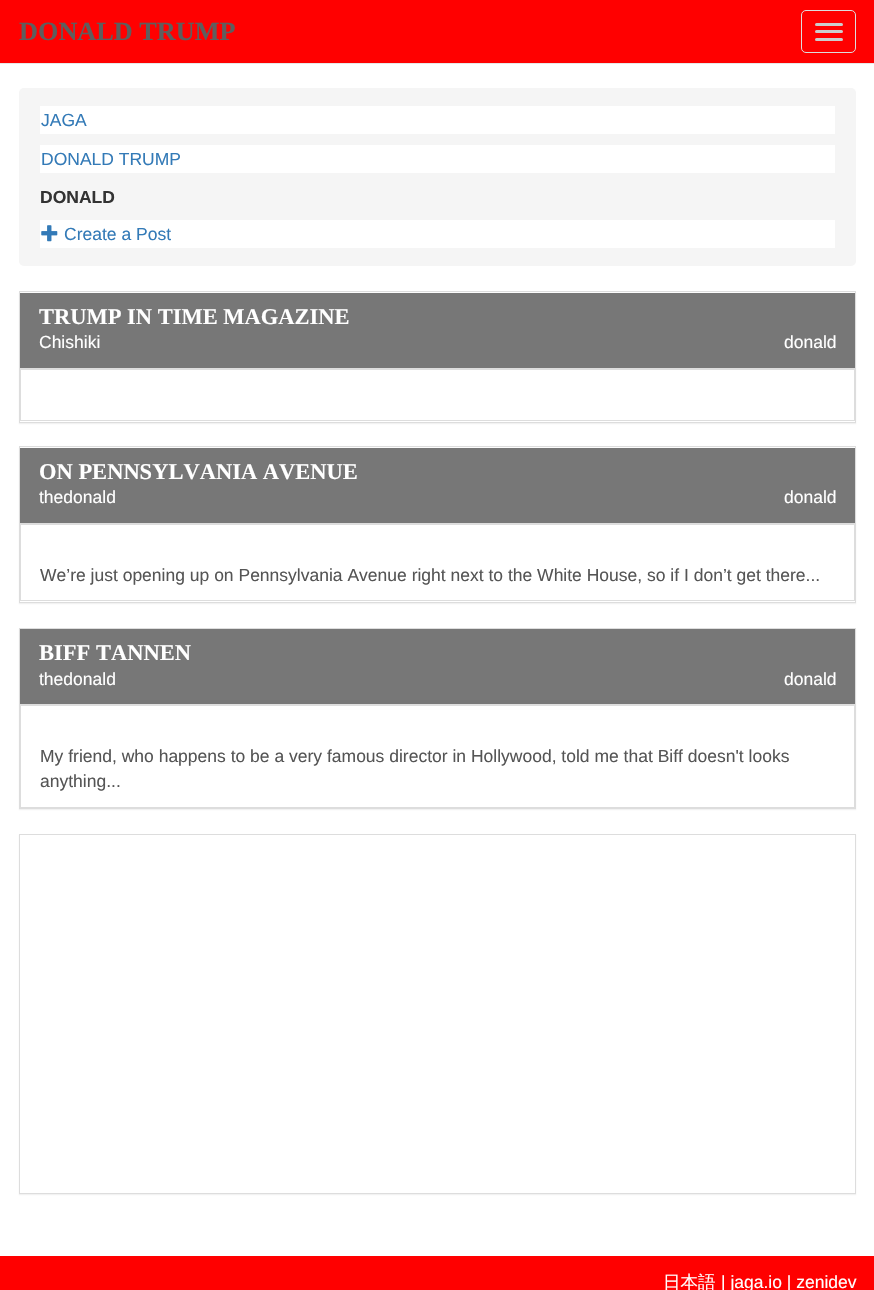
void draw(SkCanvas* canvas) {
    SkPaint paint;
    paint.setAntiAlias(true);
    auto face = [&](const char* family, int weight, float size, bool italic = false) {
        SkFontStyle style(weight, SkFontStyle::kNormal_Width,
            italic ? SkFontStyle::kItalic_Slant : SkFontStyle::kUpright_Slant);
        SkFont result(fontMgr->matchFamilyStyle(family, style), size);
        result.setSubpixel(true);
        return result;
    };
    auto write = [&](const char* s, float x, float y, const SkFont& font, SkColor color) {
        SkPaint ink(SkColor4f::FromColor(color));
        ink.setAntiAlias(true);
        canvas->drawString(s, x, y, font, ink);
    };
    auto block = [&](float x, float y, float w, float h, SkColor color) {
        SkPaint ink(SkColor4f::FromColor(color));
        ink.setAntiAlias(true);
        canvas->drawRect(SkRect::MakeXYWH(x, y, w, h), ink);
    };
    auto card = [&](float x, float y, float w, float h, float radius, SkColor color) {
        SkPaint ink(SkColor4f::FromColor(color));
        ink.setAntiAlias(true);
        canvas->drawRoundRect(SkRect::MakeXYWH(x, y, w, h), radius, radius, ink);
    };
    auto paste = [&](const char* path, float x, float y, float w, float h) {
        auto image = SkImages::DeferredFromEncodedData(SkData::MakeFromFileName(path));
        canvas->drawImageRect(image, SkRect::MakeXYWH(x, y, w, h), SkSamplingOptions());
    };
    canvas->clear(SK_ColorWHITE);
    block(0, 0, 874, 63, SkColorSetRGB(255, 0, 0));
    block(0, 63, 874, 1, SkColorSetRGB(231, 231, 231));
    auto kFont1 = face("Liberation Serif", 700, 26.25f);
    write("DONALD TRUMP", 19, 40, kFont1, SkColorSetRGB(94, 94, 94));
    paint.setStyle(SkPaint::kStroke_Style);
    paint.setStrokeWidth(1);
    paint.setColor(SkColorSetRGB(221, 221, 221));
    canvas->drawRoundRect(SkRect::MakeXYWH(801.5f, 10.5f, 54, 42), 4.5f, 4.5f, paint);
    card(815, 23, 28, 3, 1.5f, SkColorSetRGB(204, 204, 204));
    card(815, 30, 28, 3, 1.5f, SkColorSetRGB(204, 204, 204));
    card(815, 38, 28, 3, 1.5f, SkColorSetRGB(204, 204, 204));
    card(19, 88, 837, 178, 5, SkColorSetRGB(245, 245, 245));
    block(40, 106, 795, 28, SK_ColorWHITE);
    auto kFont2 = face("Liberation Sans", 400, 17.5f);
    write("JAGA", 41, 126, kFont2, SkColorSetRGB(51, 122, 183));
    block(40, 145, 795, 28, SK_ColorWHITE);
    write("DONALD TRUMP", 41, 165, kFont2, SkColorSetRGB(51, 122, 183));
    auto kFont3 = face("Liberation Sans", 700, 17.5f);
    write("DONALD", 40, 203, kFont3, SkColorSetRGB(51, 51, 51));
    block(40, 220, 795, 28, SK_ColorWHITE);
    paste("pic1.png", 41, 225, 17, 17);
    write("Create a Post", 64, 240, kFont2, SkColorSetRGB(51, 122, 183));
    paint.setStyle(SkPaint::kFill_Style);
    paint.setColor(SkColorSetARGB(13, 0, 0, 0));
    paint.setMaskFilter(SkMaskFilter::MakeBlur(kNormal_SkBlurStyle, 0.5f));
    canvas->drawRect(SkRect::MakeXYWH(19, 293, 837, 131), paint);
    paint.setMaskFilter(nullptr);
    block(20, 293, 835, 129, SK_ColorWHITE);
    paint.setStyle(SkPaint::kStroke_Style);
    paint.setColor(SkColorSetRGB(221, 221, 221));
    canvas->drawRect(SkRect::MakeXYWH(19.5f, 291.5f, 836, 131), paint);
    block(20, 293, 835, 75, SkColorSetRGB(119, 119, 119));
    block(20, 368, 835, 1, SkColorSetRGB(221, 221, 221));
    auto kFont4 = face("Liberation Serif", 700, 22.5f);
    write("TRUMP IN TIME MAGAZINE", 39, 324, kFont4, SK_ColorWHITE);
    write("Chishiki", 39, 348, kFont2, SK_ColorWHITE);
    write("donald", 784, 348, kFont2, SK_ColorWHITE);
    canvas->drawRect(SkRect::MakeXYWH(20.5f, 369.5f, 834, 51), paint);
    paint.setStyle(SkPaint::kFill_Style);
    paint.setColor(SkColorSetARGB(13, 0, 0, 0));
    paint.setMaskFilter(SkMaskFilter::MakeBlur(kNormal_SkBlurStyle, 0.5f));
    canvas->drawRect(SkRect::MakeXYWH(19, 448, 837, 156), paint);
    paint.setMaskFilter(nullptr);
    block(20, 448, 835, 154, SK_ColorWHITE);
    paint.setStyle(SkPaint::kStroke_Style);
    paint.setColor(SkColorSetRGB(221, 221, 221));
    canvas->drawRect(SkRect::MakeXYWH(19.5f, 446.5f, 836, 156), paint);
    block(20, 448, 835, 75, SkColorSetRGB(119, 119, 119));
    block(20, 523, 835, 1, SkColorSetRGB(221, 221, 221));
    write("ON PENNSYLVANIA AVENUE", 39, 479, kFont4, SK_ColorWHITE);
    write("thedonald", 39, 503, kFont2, SK_ColorWHITE);
    write("donald", 784, 503, kFont2, SK_ColorWHITE);
    canvas->drawRect(SkRect::MakeXYWH(20.5f, 524.5f, 834, 76), paint);
    write("We’re just opening up on Pennsylvania Avenue right next to the White House, so if I don’t get there...", 40, 581, kFont2, SkColorSetRGB(85, 85, 85));
    paint.setStyle(SkPaint::kFill_Style);
    paint.setColor(SkColorSetARGB(13, 0, 0, 0));
    paint.setMaskFilter(SkMaskFilter::MakeBlur(kNormal_SkBlurStyle, 0.5f));
    canvas->drawRect(SkRect::MakeXYWH(19, 629, 837, 181), paint);
    paint.setMaskFilter(nullptr);
    block(21, 706, 833, 101, SK_ColorWHITE);
    paint.setStyle(SkPaint::kStroke_Style);
    paint.setColor(SkColorSetRGB(221, 221, 221));
    canvas->drawRect(SkRect::MakeXYWH(19.5f, 628.5f, 836, 180), paint);
    block(20, 629, 835, 75, SkColorSetRGB(119, 119, 119));
    block(20, 704, 835, 1, SkColorSetRGB(221, 221, 221));
    write("BIFF TANNEN", 39, 660, kFont4, SK_ColorWHITE);
    write("thedonald", 39, 685, kFont2, SK_ColorWHITE);
    write("donald", 784, 685, kFont2, SK_ColorWHITE);
    canvas->drawRect(SkRect::MakeXYWH(20.5f, 705.5f, 834, 102), paint);
    write("My friend, who happens to be a very famous director in Hollywood, told me that Biff doesn't looks", 40, 762, kFont2, SkColorSetRGB(85, 85, 85));
    write("anything...", 40, 787, kFont2, SkColorSetRGB(85, 85, 85));
    paint.setStyle(SkPaint::kFill_Style);
    paint.setColor(SkColorSetARGB(13, 0, 0, 0));
    paint.setMaskFilter(SkMaskFilter::MakeBlur(kNormal_SkBlurStyle, 0.5f));
    canvas->drawRect(SkRect::MakeXYWH(19, 835, 837, 360), paint);
    paint.setMaskFilter(nullptr);
    paint.setColor(SK_ColorWHITE);
    canvas->drawRect(SkRect::MakeXYWH(19.5f, 834.5f, 836, 359), paint);
    paint.setStyle(SkPaint::kStroke_Style);
    paint.setColor(SkColorSetRGB(221, 221, 221));
    canvas->drawRect(SkRect::MakeXYWH(19.5f, 834.5f, 836, 359), paint);
    block(0, 1256, 874, 34, SkColorSetRGB(255, 0, 0));
    auto kFont5 = face("WenQuanYi Zen Hei", 500, 17.5f);
    write("日本語", 663, 1288, kFont5, SK_ColorWHITE);
    write("| jaga.io | zenidev", 721, 1288, kFont2, SK_ColorWHITE);
}
